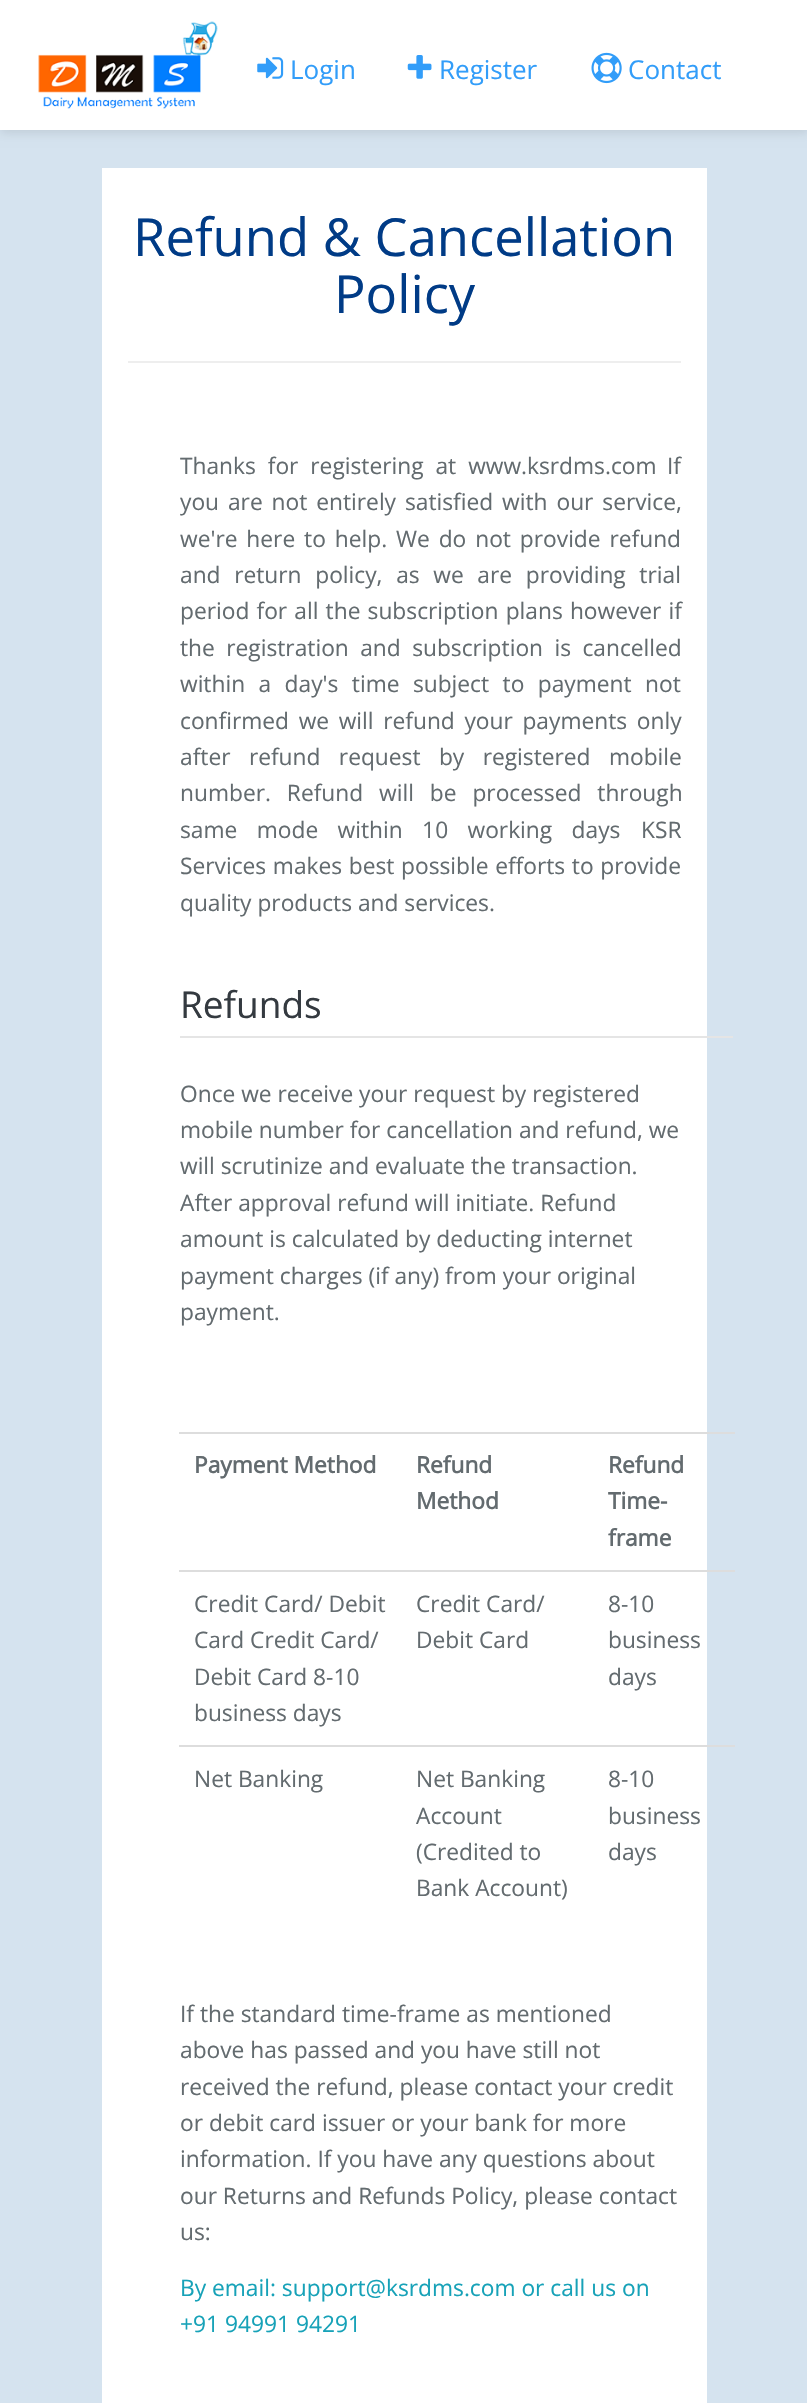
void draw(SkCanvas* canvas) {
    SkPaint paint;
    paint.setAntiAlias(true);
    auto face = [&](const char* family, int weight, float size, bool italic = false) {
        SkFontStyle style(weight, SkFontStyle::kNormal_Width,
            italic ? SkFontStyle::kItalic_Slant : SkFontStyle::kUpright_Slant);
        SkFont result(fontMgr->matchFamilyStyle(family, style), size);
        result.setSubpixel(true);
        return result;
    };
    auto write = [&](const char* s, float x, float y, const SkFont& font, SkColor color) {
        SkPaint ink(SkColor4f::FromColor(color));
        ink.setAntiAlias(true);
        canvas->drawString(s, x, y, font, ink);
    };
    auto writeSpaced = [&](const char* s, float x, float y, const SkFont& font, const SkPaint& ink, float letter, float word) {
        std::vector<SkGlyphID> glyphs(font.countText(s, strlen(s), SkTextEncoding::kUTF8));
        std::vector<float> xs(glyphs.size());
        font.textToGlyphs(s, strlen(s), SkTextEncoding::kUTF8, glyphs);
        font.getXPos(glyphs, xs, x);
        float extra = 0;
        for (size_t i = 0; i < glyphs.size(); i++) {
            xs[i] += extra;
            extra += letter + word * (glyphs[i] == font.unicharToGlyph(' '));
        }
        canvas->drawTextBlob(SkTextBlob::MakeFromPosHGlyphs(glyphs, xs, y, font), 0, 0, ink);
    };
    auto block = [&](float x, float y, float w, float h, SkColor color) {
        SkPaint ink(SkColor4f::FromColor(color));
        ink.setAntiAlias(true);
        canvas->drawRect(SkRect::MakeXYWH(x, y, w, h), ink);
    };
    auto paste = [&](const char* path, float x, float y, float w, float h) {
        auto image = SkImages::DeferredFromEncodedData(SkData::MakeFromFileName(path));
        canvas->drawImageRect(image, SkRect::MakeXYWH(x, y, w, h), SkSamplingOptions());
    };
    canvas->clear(SkColorSetRGB(213, 227, 239));
    paint.setColor(SkColorSetARGB(26, 0, 0, 0));
    paint.setMaskFilter(SkMaskFilter::MakeBlur(kNormal_SkBlurStyle, 5));
    canvas->drawRect(SkRect::MakeXYWH(0, 4, 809, 129), paint);
    paint.setMaskFilter(nullptr);
    block(0, 0, 807, 130, SK_ColorWHITE);
    paste("pic1.png", 38, 21, 180, 88);
    paste("pic2.png", 257, 57, 27, 22);
    auto kFont1 = face("Open Sans", 400, 26);
    write("Login", 290, 79, kFont1, SkColorSetRGB(50, 157, 249));
    paste("pic3.png", 407, 55, 25, 24);
    write("Register", 439, 79, kFont1, SkColorSetRGB(50, 157, 249));
    paste("pic4.png", 591, 52, 31, 32);
    write("Contact", 628, 79, kFont1, SkColorSetRGB(50, 157, 249));
    block(102, 168, 605, 2235, SK_ColorWHITE);
    auto kFont2 = face("Open Sans", 400, 52.5f);
    write("Refund & Cancellation", 133, 256, kFont2, SkColorSetRGB(0, 59, 134));
    write("Policy", 334, 313, kFont2, SkColorSetRGB(0, 59, 134));
    block(128, 361, 553, 2, SkColorSetRGB(238, 238, 238));
    auto kFont3 = face("Open Sans", 400, 22.75f);
    paint.setColor(SkColorSetRGB(99, 107, 111));
    writeSpaced("Thanks for registering at www.ksrdms.com", 180, 474, kFont3, paint, 0, 6);
    write("If", 667, 474, kFont3, SkColorSetRGB(99, 107, 111));
    writeSpaced("you are not entirely satisfied with our service,", 180, 510, kFont3, paint, 0, 3);
    writeSpaced("we're here to help.", 180, 547, kFont3, paint, 0, 3);
    writeSpaced("We do not provide refund", 396, 547, kFont3, paint, 0, 3);
    writeSpaced("and return policy, as we are providing trial", 180, 583, kFont3, paint, 0, 7.75f);
    writeSpaced("period for all the subscription plans however if", 180, 619, kFont3, paint, 0, 1.25f);
    writeSpaced("the registration and subscription is cancelled", 180, 656, kFont3, paint, 0, 5.5f);
    writeSpaced("within a day's time subject to payment not", 180, 692, kFont3, paint, 0, 7.5f);
    writeSpaced("confirmed we will refund your payments only", 180, 729, kFont3, paint, 0, 3.75f);
    writeSpaced("after refund request by registered mobile", 180, 765, kFont3, paint, 0, 12.5f);
    writeSpaced("number. Refund will be processed through", 180, 801, kFont3, paint, 0, 10);
    writeSpaced("same mode within 10 working days", 180, 838, kFont3, paint, 0, 13.5f);
    write("KSR", 641, 838, kFont3, SkColorSetRGB(99, 107, 111));
    writeSpaced("Services makes best possible efforts to provide", 180, 874, kFont3, paint, 0, 0.75f);
    write("quality products and services.", 180, 911, kFont3, SkColorSetRGB(99, 107, 111));
    block(180, 1036, 553, 2, SkColorSetRGB(229, 229, 229));
    auto kFont4 = face("Open Sans", 400, 37);
    write("Refunds", 180, 1018, kFont4, SkColorSetRGB(52, 58, 64));
    write("Once we receive your request by registered", 180, 1102, kFont3, SkColorSetRGB(99, 107, 111));
    write("mobile number for cancellation and refund, we", 180, 1138, kFont3, SkColorSetRGB(99, 107, 111));
    write("will scrutinize and evaluate the transaction.", 180, 1174, kFont3, SkColorSetRGB(99, 107, 111));
    write("After approval refund will initiate. Refund", 180, 1211, kFont3, SkColorSetRGB(99, 107, 111));
    write("amount is calculated by deducting internet", 180, 1247, kFont3, SkColorSetRGB(99, 107, 111));
    write("payment charges (if any) from your original", 180, 1284, kFont3, SkColorSetRGB(99, 107, 111));
    write("payment.", 180, 1320, kFont3, SkColorSetRGB(99, 107, 111));
    auto kFont5 = face("Open Sans", 700, 22.75f);
    write("Payment Method", 194, 1473, kFont5, SkColorSetRGB(99, 107, 111));
    write("Refund", 416, 1473, kFont5, SkColorSetRGB(99, 107, 111));
    write("Method", 416, 1509, kFont5, SkColorSetRGB(99, 107, 111));
    block(179, 1432, 556, 2, SkColorSetRGB(221, 221, 221));
    write("Refund", 608, 1473, kFont5, SkColorSetRGB(99, 107, 111));
    write("Time-", 608, 1509, kFont5, SkColorSetRGB(99, 107, 111));
    write("frame", 608, 1546, kFont5, SkColorSetRGB(99, 107, 111));
    write("Credit Card/ Debit", 194, 1612, kFont3, SkColorSetRGB(99, 107, 111));
    write("Card Credit Card/", 194, 1648, kFont3, SkColorSetRGB(99, 107, 111));
    write("Debit Card 8-10", 194, 1685, kFont3, SkColorSetRGB(99, 107, 111));
    write("business days", 194, 1721, kFont3, SkColorSetRGB(99, 107, 111));
    write("Credit Card/", 416, 1612, kFont3, SkColorSetRGB(99, 107, 111));
    write("Debit Card", 416, 1648, kFont3, SkColorSetRGB(99, 107, 111));
    block(179, 1570, 556, 2, SkColorSetRGB(221, 221, 221));
    write("8-10", 608, 1612, kFont3, SkColorSetRGB(99, 107, 111));
    write("business", 608, 1648, kFont3, SkColorSetRGB(99, 107, 111));
    write("days", 608, 1685, kFont3, SkColorSetRGB(99, 107, 111));
    write("Net Banking", 194, 1787, kFont3, SkColorSetRGB(99, 107, 111));
    write("Net Banking", 416, 1787, kFont3, SkColorSetRGB(99, 107, 111));
    write("Account", 416, 1824, kFont3, SkColorSetRGB(99, 107, 111));
    write("(Credited to", 416, 1860, kFont3, SkColorSetRGB(99, 107, 111));
    write("Bank Account)", 416, 1896, kFont3, SkColorSetRGB(99, 107, 111));
    block(179, 1745, 556, 2, SkColorSetRGB(221, 221, 221));
    write("8-10", 608, 1787, kFont3, SkColorSetRGB(99, 107, 111));
    write("business", 608, 1824, kFont3, SkColorSetRGB(99, 107, 111));
    write("days", 608, 1860, kFont3, SkColorSetRGB(99, 107, 111));
    write("If the standard time-frame as mentioned", 180, 2022, kFont3, SkColorSetRGB(99, 107, 111));
    write("above has passed and you have still not", 180, 2058, kFont3, SkColorSetRGB(99, 107, 111));
    write("received the refund, please contact your credit", 180, 2095, kFont3, SkColorSetRGB(99, 107, 111));
    write("or debit card issuer or your bank for more", 180, 2131, kFont3, SkColorSetRGB(99, 107, 111));
    write("information. If you have any questions about", 180, 2167, kFont3, SkColorSetRGB(99, 107, 111));
    write("our Returns and Refunds Policy, please contact", 180, 2204, kFont3, SkColorSetRGB(99, 107, 111));
    write("us:", 180, 2240, kFont3, SkColorSetRGB(99, 107, 111));
    write("By email: support@ksrdms.com or call us on", 180, 2296, kFont3, SkColorSetRGB(23, 162, 184));
    write("+91 94991 94291", 180, 2332, kFont3, SkColorSetRGB(23, 162, 184));
}
